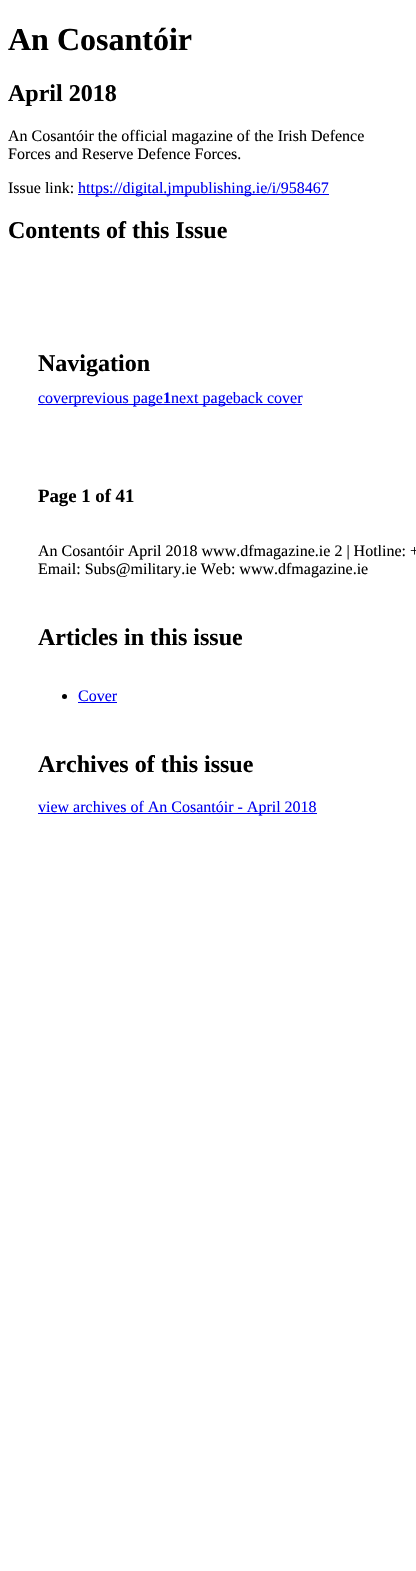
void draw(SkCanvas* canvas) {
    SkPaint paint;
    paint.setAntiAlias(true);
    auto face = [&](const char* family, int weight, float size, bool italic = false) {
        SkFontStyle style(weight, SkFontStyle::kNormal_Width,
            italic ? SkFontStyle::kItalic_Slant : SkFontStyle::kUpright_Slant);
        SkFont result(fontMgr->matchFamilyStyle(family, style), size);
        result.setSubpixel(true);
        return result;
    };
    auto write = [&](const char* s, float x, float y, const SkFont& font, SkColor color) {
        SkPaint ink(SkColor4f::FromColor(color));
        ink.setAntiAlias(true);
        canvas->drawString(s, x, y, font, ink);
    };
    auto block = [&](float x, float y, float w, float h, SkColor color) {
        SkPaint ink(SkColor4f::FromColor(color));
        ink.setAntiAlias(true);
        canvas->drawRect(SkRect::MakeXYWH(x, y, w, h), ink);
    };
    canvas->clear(SK_ColorWHITE);
    auto kFont1 = face("Liberation Serif", 700, 32);
    write("An Cosantóir", 8, 50, kFont1, SK_ColorBLACK);
    auto kFont2 = face("Liberation Serif", 700, 24);
    write("April 2018", 8, 101, kFont2, SK_ColorBLACK);
    auto kFont3 = face("Liberation Serif", 400, 16);
    write("An Cosantóir the official magazine of the Irish Defence", 8, 141, kFont3, SK_ColorBLACK);
    write("Forces and Reserve Defence Forces.", 8, 159, kFont3, SK_ColorBLACK);
    write("Issue link:", 8, 193, kFont3, SK_ColorBLACK);
    block(78, 194, 251, 1, SkColorSetRGB(0, 0, 238));
    write("https://digital.jmpublishing.ie/i/958467", 78, 193, kFont3, SkColorSetRGB(0, 0, 238));
    write("Contents of this Issue", 8, 238, kFont2, SK_ColorBLACK);
    write("Navigation", 38, 371, kFont2, SK_ColorBLACK);
    block(38, 404, 264, 1, SkColorSetRGB(0, 0, 238));
    write("coverprevious page", 38, 403, kFont3, SkColorSetRGB(0, 0, 238));
    auto kFont4 = face("Liberation Serif", 700, 16);
    write("1", 163, 403, kFont4, SkColorSetRGB(0, 0, 238));
    write("next pageback cover", 171, 403, kFont3, SkColorSetRGB(0, 0, 238));
    auto kFont5 = face("Liberation Serif", 700, 18.75f);
    write("Page 1 of 41", 38, 502, kFont5, SK_ColorBLACK);
    write("An Cosantóir April 2018 www.dfmagazine.ie 2 | Hotline: +", 38, 556, kFont3, SK_ColorBLACK);
    write("Email: Subs@military.ie Web: www.dfmagazine.ie", 38, 574, kFont3, SK_ColorBLACK);
    write("Articles in this issue", 38, 645, kFont2, SK_ColorBLACK);
    paint.setColor(SK_ColorBLACK);
    canvas->drawCircle(64.5f, 696.5f, 2.5f, paint);
    write("Cover", 78, 701, kFont3, SkColorSetRGB(0, 0, 238));
    block(78, 702, 39, 1, SkColorSetRGB(0, 0, 238));
    write("Archives of this issue", 38, 772, kFont2, SK_ColorBLACK);
    block(38, 813, 279, 1, SkColorSetRGB(0, 0, 238));
    write("view archives of An Cosantóir - April 2018", 38, 812, kFont3, SkColorSetRGB(0, 0, 238));
}
